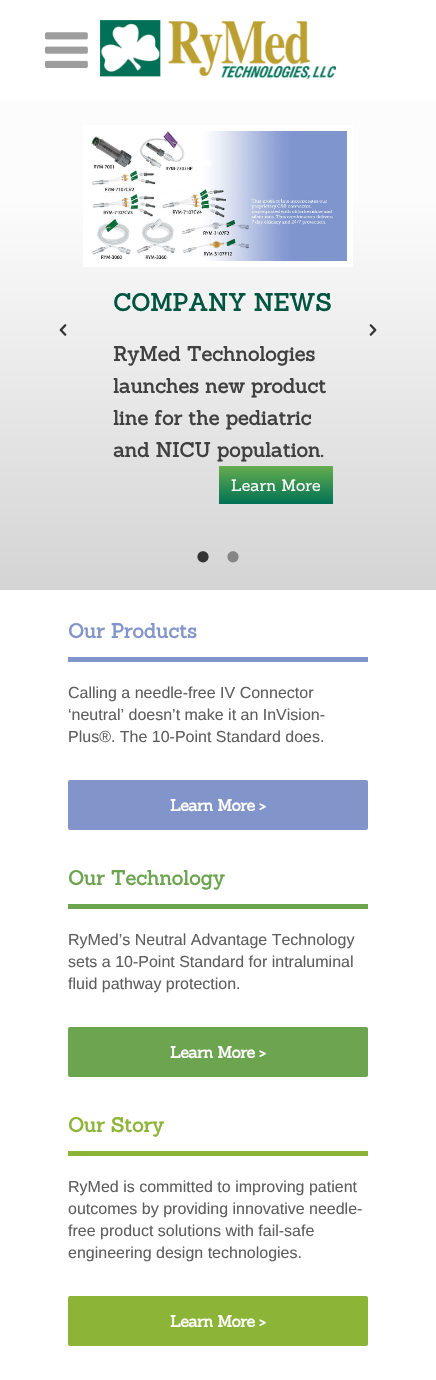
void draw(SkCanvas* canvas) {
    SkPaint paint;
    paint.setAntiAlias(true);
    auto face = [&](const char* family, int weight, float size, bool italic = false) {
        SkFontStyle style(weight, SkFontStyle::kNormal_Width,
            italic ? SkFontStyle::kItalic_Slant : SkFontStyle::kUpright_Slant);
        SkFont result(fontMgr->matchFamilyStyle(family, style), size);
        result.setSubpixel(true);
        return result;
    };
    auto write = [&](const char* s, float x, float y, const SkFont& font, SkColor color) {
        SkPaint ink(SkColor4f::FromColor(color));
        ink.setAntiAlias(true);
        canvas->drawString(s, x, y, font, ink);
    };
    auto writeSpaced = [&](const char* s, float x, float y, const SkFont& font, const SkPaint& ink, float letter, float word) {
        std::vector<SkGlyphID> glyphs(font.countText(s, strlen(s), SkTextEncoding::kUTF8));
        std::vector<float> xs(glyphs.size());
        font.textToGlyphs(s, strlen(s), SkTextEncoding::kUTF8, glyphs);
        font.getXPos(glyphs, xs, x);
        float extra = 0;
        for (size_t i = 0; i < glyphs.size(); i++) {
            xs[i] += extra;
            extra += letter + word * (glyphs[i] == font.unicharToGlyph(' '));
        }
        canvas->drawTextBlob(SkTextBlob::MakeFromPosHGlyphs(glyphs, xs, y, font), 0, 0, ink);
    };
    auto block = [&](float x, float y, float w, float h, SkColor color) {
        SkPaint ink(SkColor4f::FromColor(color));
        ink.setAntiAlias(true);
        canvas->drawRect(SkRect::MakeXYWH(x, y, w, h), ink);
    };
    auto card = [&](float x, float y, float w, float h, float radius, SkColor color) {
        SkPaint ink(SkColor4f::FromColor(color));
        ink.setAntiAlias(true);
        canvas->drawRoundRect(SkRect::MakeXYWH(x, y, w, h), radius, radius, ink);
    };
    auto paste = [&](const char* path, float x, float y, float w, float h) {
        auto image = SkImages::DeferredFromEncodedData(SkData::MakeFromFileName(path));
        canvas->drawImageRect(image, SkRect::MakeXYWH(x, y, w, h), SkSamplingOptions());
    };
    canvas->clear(SK_ColorWHITE);
    paste("pic1.png", 45, 32, 43, 36);
    paste("pic2.png", 100, 20, 236, 60);
    {
        const SkColor colors[] = {SkColorSetRGB(252, 252, 252), SkColorSetRGB(212, 212, 212)};
        const float stops[] = {0.2f, 1};
        const SkPoint ends[] = {{218, 100}, {218, 590}};
        paint.setShader(SkGradientShader::MakeLinear(ends, colors, stops, 2, SkTileMode::kClamp));
        paint.setAlpha(255);
    }
    canvas->drawRect(SkRect::MakeXYWH(0, 100, 436, 490), paint);
    paste("pic3.png", 59, 324, 8, 12);
    block(83, 125, 270, 142, SK_ColorWHITE);
    paste("pic4.png", 91, 131, 256, 130);
    auto kFont1 = face("Sanchez", 700, 24);
    write("COMPANY NEWS", 113, 311, kFont1, SkColorSetRGB(0, 85, 64));
    auto kFont2 = face("Sanchez", 700, 20);
    write("RyMed Technologies", 113, 361, kFont2, SkColorSetRGB(64, 64, 64));
    write("launches new product", 113, 393, kFont2, SkColorSetRGB(64, 64, 64));
    write("line for the pediatric", 113, 425, kFont2, SkColorSetRGB(64, 64, 64));
    write("and NICU population.", 113, 457, kFont2, SkColorSetRGB(64, 64, 64));
    {
        const SkColor colors[] = {SkColorSetRGB(101, 173, 79), SkColorSetRGB(0, 113, 85)};
        const float stops[] = {0, 1};
        const SkPoint ends[] = {{276, 466}, {276, 504}};
        paint.setShader(SkGradientShader::MakeLinear(ends, colors, stops, 2, SkTileMode::kClamp));
        paint.setAlpha(255);
    }
    canvas->drawRect(SkRect::MakeXYWH(219, 466, 114, 38), paint);
    auto kFont3 = face("Sanchez", 400, 16);
    write("Learn More", 231, 491, kFont3, SK_ColorWHITE);
    paste("pic5.png", 369, 324, 8, 12);
    paste("pic6.png", 197, 551, 12, 12);
    paste("pic7.png", 227, 551, 12, 12);
    write("Our Products", 68, 638, kFont2, SkColorSetRGB(130, 149, 202));
    block(68, 657, 300, 5, SkColorSetRGB(130, 149, 202));
    auto kFont4 = face("Liberation Sans", 400, 16);
    write("Calling a needle-free IV Connector", 68, 698, kFont4, SkColorSetRGB(94, 94, 94));
    write("‘neutral’ doesn’t make it an InVision-", 68, 720, kFont4, SkColorSetRGB(94, 94, 94));
    write("Plus®. The 10-Point Standard does.", 68, 742, kFont4, SkColorSetRGB(94, 94, 94));
    card(68, 780, 300, 50, 2, SkColorSetRGB(130, 149, 202));
    auto kFont5 = face("Sanchez", 700, 16);
    paint.setShader(nullptr);
    paint.setColor(SK_ColorWHITE);
    writeSpaced("Learn More >", 170, 811, kFont5, paint, -0.5f, 0);
    write("Our Technology", 68, 885, kFont2, SkColorSetRGB(109, 164, 79));
    block(68, 904, 300, 5, SkColorSetRGB(109, 164, 79));
    write("RyMed’s Neutral Advantage Technology", 68, 945, kFont4, SkColorSetRGB(94, 94, 94));
    write("sets a 10-Point Standard for intraluminal", 68, 967, kFont4, SkColorSetRGB(94, 94, 94));
    write("fluid pathway protection.", 68, 989, kFont4, SkColorSetRGB(94, 94, 94));
    card(68, 1027, 300, 50, 2, SkColorSetRGB(109, 164, 79));
    writeSpaced("Learn More >", 170, 1058, kFont5, paint, -0.5f, 0);
    write("Our Story", 68, 1132, kFont2, SkColorSetRGB(140, 180, 55));
    block(68, 1151, 300, 5, SkColorSetRGB(140, 180, 55));
    write("RyMed is committed to improving patient", 68, 1192, kFont4, SkColorSetRGB(94, 94, 94));
    write("outcomes by providing innovative needle-", 68, 1214, kFont4, SkColorSetRGB(94, 94, 94));
    write("free product solutions with fail-safe", 68, 1236, kFont4, SkColorSetRGB(94, 94, 94));
    write("engineering design technologies.", 68, 1258, kFont4, SkColorSetRGB(94, 94, 94));
    card(68, 1296, 300, 50, 2, SkColorSetRGB(140, 180, 55));
    writeSpaced("Learn More >", 170, 1327, kFont5, paint, -0.5f, 0);
}
